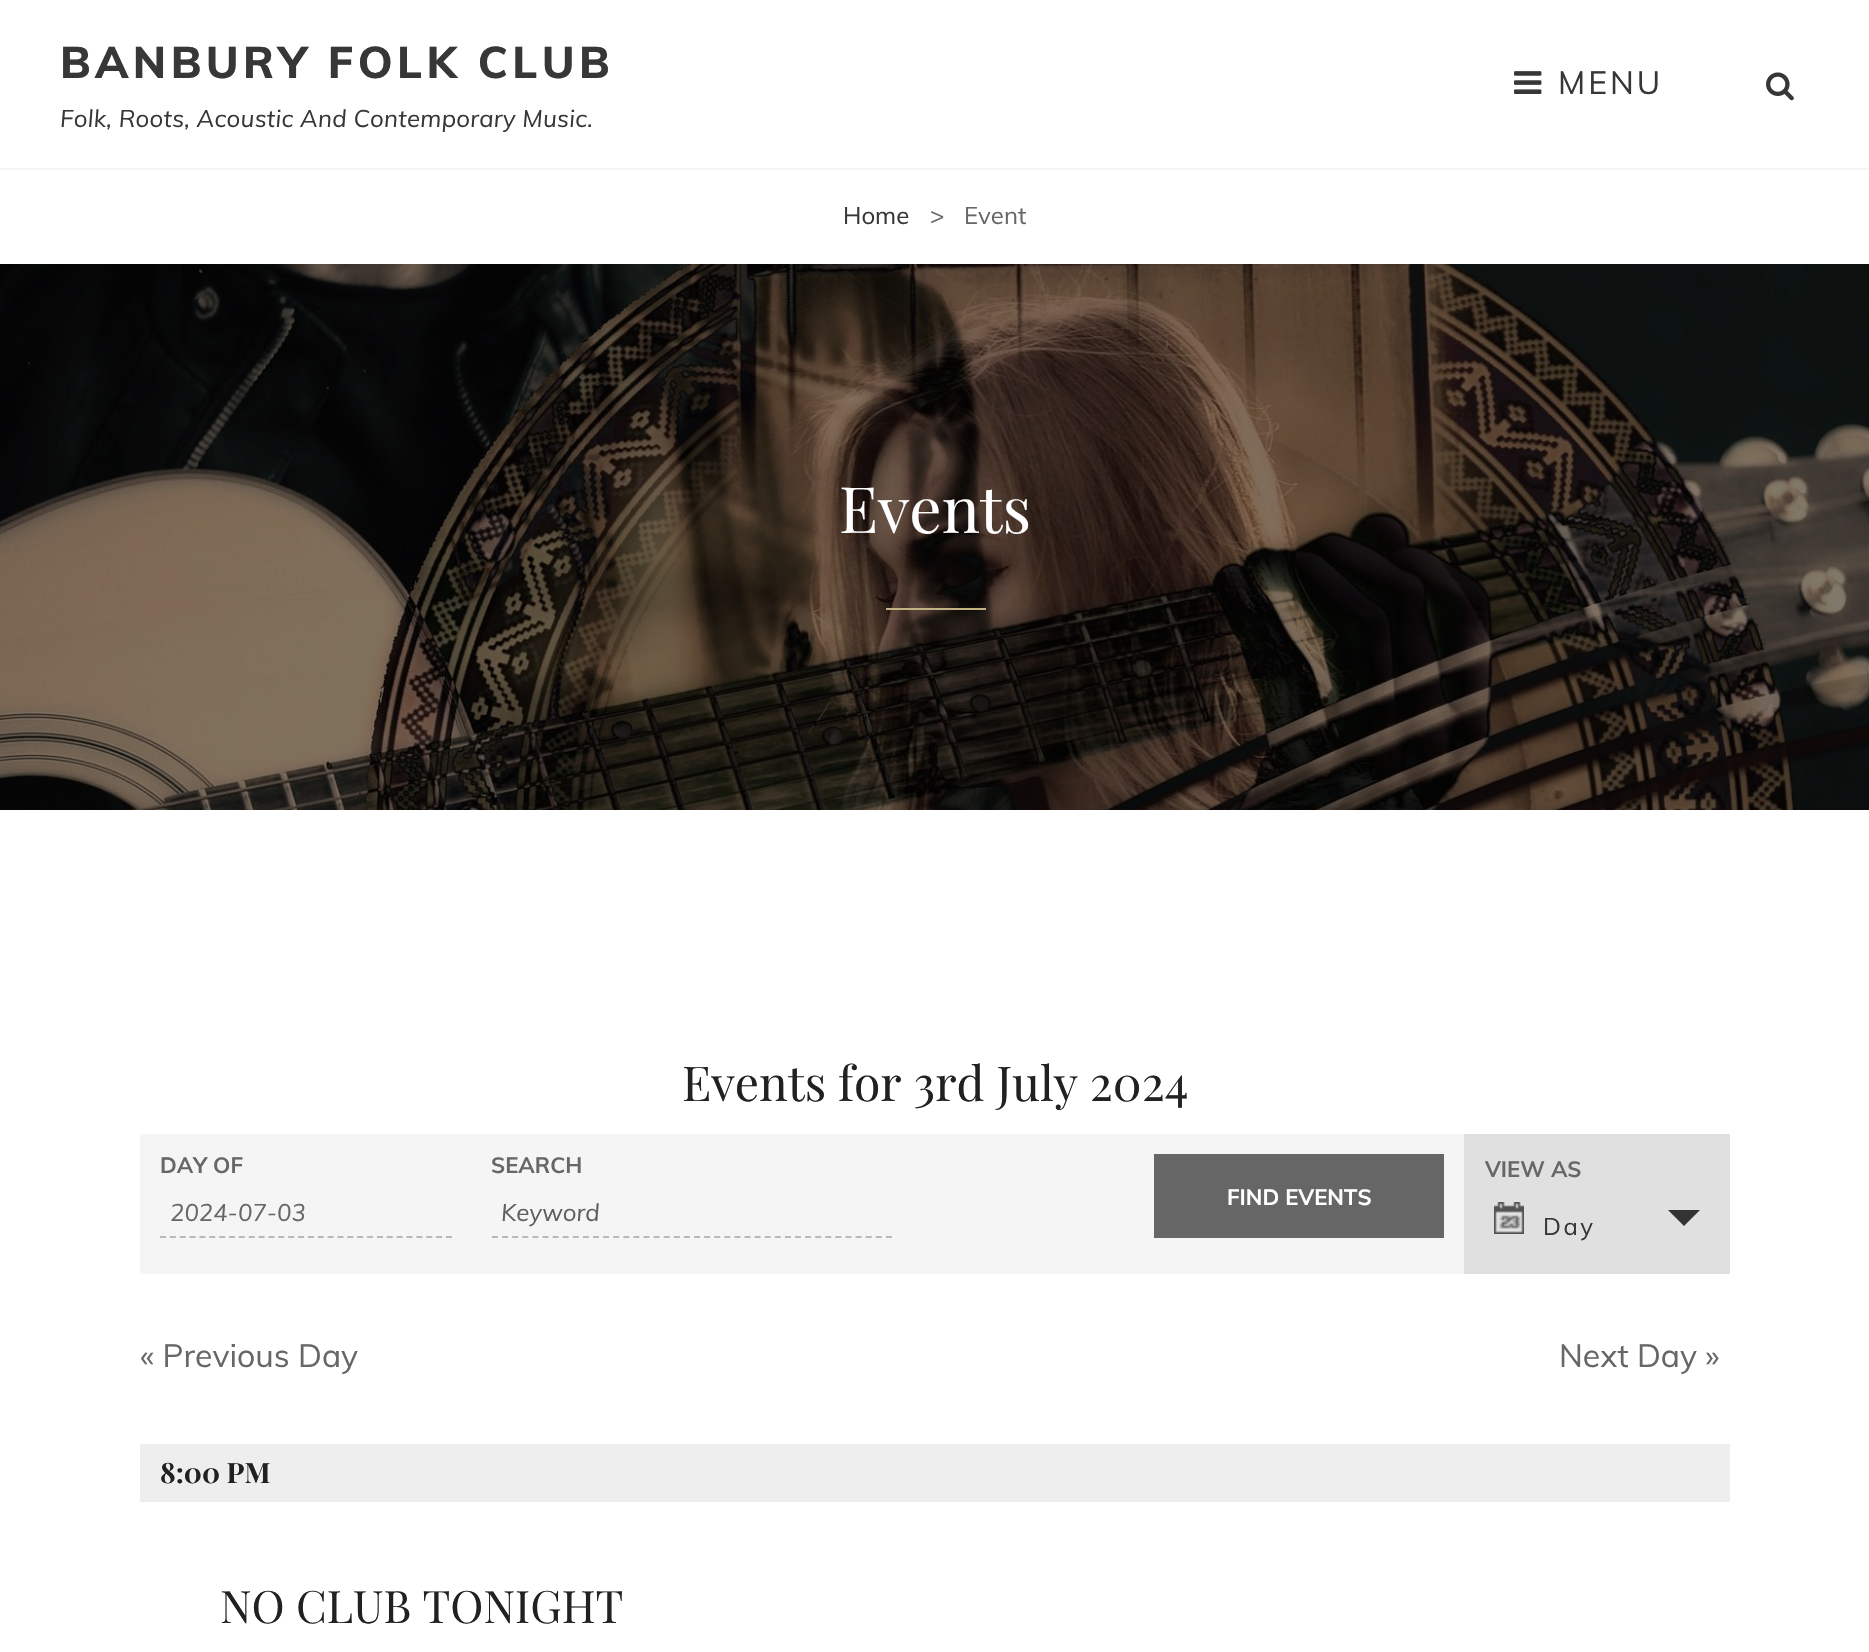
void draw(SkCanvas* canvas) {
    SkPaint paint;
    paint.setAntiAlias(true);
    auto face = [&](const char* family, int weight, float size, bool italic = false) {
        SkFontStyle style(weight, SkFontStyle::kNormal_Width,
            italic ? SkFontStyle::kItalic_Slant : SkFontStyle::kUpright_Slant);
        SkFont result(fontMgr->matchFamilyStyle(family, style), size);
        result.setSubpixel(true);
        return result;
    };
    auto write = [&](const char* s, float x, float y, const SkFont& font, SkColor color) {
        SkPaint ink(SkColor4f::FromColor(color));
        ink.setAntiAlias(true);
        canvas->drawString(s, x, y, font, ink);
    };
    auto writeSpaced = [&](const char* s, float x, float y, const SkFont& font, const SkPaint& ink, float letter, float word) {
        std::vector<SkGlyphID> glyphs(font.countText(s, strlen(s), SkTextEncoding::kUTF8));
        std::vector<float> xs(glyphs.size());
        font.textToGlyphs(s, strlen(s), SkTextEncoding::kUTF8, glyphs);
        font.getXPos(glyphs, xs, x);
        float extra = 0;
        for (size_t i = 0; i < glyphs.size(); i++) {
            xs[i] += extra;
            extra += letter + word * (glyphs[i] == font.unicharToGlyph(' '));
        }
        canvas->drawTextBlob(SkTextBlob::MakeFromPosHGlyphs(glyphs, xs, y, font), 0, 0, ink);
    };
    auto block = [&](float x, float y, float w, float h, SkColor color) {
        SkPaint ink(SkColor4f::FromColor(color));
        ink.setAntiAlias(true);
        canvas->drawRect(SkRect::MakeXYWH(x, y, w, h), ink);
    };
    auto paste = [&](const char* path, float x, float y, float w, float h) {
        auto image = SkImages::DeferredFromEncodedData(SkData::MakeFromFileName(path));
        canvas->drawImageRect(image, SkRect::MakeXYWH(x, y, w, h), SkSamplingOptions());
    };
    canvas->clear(SK_ColorWHITE);
    block(0, 168, 1869, 2, SkColorSetRGB(244, 244, 244));
    auto kFont1 = face("Muli", 800, 44);
    paint.setColor(SkColorSetRGB(55, 55, 55));
    writeSpaced("BANBURY FOLK CLUB", 60, 78, kFont1, paint, 4.4f, 0);
    canvas->save();
    canvas->clipRect(SkRect::MakeXYWH(60, 36, 554, 96));
    auto kFont2 = face("Muli", 400, 24, true);
    writeSpaced("Folk, Roots, Acoustic And Contemporary Music.", 60, 127, kFont2, paint, 0.25f, 0);
    canvas->restore();
    paste("pic1.png", 1514, 71, 28, 23);
    auto kFont3 = face("Muli", 400, 32);
    writeSpaced("MENU", 1558, 94, kFont3, paint, 3, 0);
    paste("pic2.png", 1766, 72, 28, 29);
    auto kFont4 = face("Muli", 400, 24);
    write("Home", 843, 224, kFont4, SkColorSetRGB(55, 55, 55));
    write(">", 930, 224, kFont4, SkColorSetRGB(103, 103, 103));
    write("Event", 964, 224, kFont4, SkColorSetRGB(103, 103, 103));
    paste("pic3.png", 0, 264, 1869, 546);
    auto kFont5 = face("Playfair Display", 400, 64);
    write("Events", 839, 533, kFont5, SK_ColorWHITE);
    block(886, 608, 100, 2, SkColorSetRGB(192, 178, 131));
    auto kFont6 = face("Playfair Display", 400, 48);
    write("Events for 3rd July 2024", 682, 1101, kFont6, SkColorSetRGB(33, 33, 33));
    block(140, 1134, 1324, 140, SkColorSetRGB(245, 245, 245));
    auto kFont7 = face("Muli", 700, 22);
    write("DAY OF", 160, 1173, kFont7, SkColorSetRGB(103, 103, 103));
    paint.setStyle(SkPaint::kStroke_Style);
    paint.setStrokeWidth(2);
    paint.setColor(SkColorSetRGB(185, 185, 185));
    paint.setPathEffect(SkDashPathEffect::Make({{6, 3.86f}}, 0));
    canvas->drawPath(SkPathBuilder().moveTo(160, 1237).lineTo(452, 1237).detach(), paint);
    paint.setPathEffect(nullptr);
    write("2024-07-03", 170, 1221, kFont2, SkColorSetRGB(103, 103, 103));
    write("SEARCH", 491, 1173, kFont7, SkColorSetRGB(103, 103, 103));
    paint.setPathEffect(SkDashPathEffect::Make({{6, 4.1f}}, 0));
    canvas->drawPath(SkPathBuilder().moveTo(492, 1237).lineTo(892, 1237).detach(), paint);
    paint.setPathEffect(nullptr);
    write("Keyword", 501, 1221, kFont2, SkColorSetRGB(95, 95, 95));
    block(1154, 1154, 290, 84, SkColorSetRGB(102, 102, 102));
    write("FIND EVENTS", 1227, 1205, kFont7, SK_ColorWHITE);
    block(1464, 1134, 266, 140, SkColorSetRGB(224, 224, 224));
    write("VIEW AS", 1485, 1177, kFont7, SkColorSetRGB(103, 103, 103));
    paste("pic4.png", 1494, 1202, 30, 32);
    paint.setStyle(SkPaint::kFill_Style);
    paint.setColor(SkColorSetRGB(55, 55, 55));
    writeSpaced("Day", 1543, 1235, kFont4, paint, 2.5f, 0);
    paint.setColor(SkColorSetRGB(51, 51, 51));
    canvas->drawPath(SkPathBuilder().moveTo(1668, 1210).lineTo(1700, 1210).lineTo(1684, 1226).close().detach(), paint);
    write("« Previous Day", 140, 1367, kFont3, SkColorSetRGB(103, 103, 103));
    write("Next Day »", 1559, 1367, kFont3, SkColorSetRGB(103, 103, 103));
    block(140, 1444, 1590, 58, SkColorSetRGB(238, 238, 238));
    auto kFont8 = face("Playfair Display", 700, 28);
    write("8:00 PM", 160, 1483, kFont8, SkColorSetRGB(33, 33, 33));
    auto kFont9 = face("Playfair Display", 400, 44.75f);
    write("NO CLUB TONIGHT", 220, 1623, kFont9, SkColorSetRGB(33, 33, 33));
}
